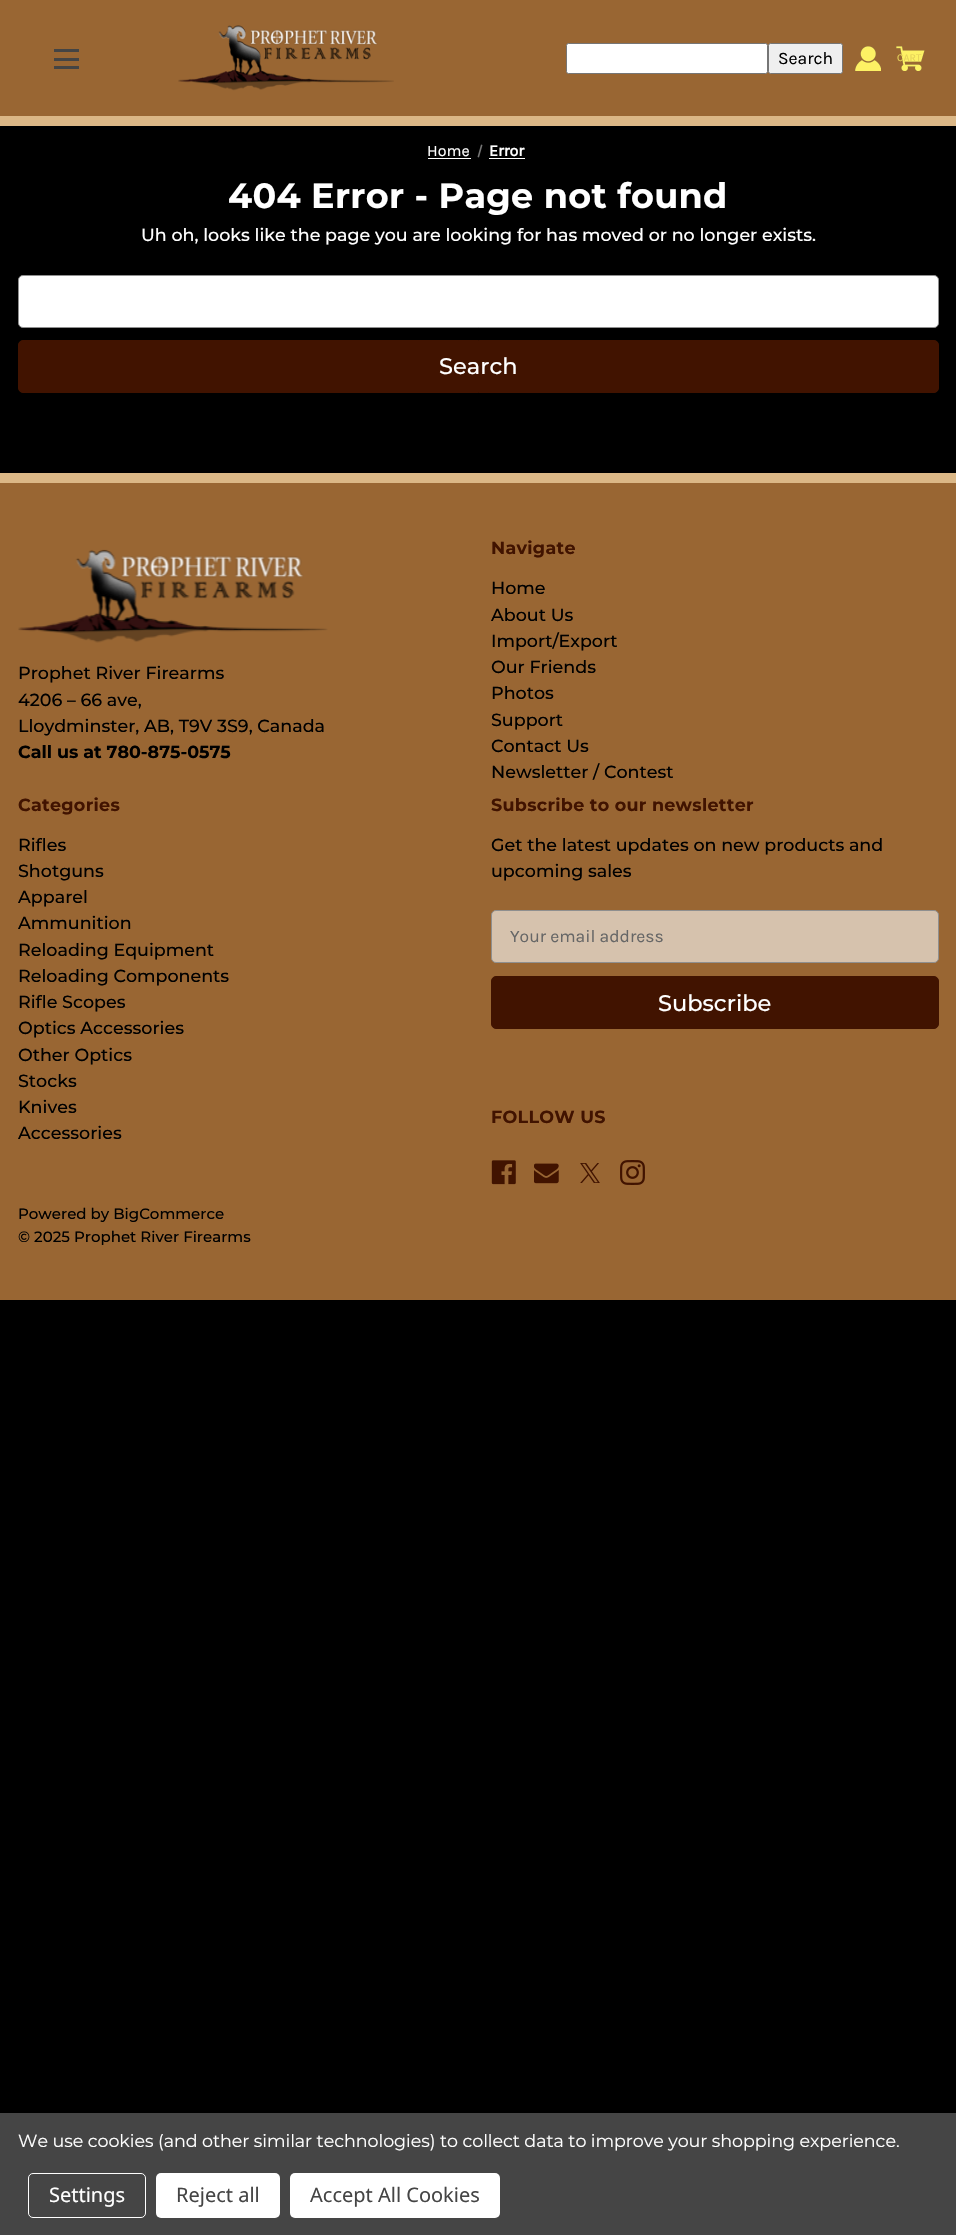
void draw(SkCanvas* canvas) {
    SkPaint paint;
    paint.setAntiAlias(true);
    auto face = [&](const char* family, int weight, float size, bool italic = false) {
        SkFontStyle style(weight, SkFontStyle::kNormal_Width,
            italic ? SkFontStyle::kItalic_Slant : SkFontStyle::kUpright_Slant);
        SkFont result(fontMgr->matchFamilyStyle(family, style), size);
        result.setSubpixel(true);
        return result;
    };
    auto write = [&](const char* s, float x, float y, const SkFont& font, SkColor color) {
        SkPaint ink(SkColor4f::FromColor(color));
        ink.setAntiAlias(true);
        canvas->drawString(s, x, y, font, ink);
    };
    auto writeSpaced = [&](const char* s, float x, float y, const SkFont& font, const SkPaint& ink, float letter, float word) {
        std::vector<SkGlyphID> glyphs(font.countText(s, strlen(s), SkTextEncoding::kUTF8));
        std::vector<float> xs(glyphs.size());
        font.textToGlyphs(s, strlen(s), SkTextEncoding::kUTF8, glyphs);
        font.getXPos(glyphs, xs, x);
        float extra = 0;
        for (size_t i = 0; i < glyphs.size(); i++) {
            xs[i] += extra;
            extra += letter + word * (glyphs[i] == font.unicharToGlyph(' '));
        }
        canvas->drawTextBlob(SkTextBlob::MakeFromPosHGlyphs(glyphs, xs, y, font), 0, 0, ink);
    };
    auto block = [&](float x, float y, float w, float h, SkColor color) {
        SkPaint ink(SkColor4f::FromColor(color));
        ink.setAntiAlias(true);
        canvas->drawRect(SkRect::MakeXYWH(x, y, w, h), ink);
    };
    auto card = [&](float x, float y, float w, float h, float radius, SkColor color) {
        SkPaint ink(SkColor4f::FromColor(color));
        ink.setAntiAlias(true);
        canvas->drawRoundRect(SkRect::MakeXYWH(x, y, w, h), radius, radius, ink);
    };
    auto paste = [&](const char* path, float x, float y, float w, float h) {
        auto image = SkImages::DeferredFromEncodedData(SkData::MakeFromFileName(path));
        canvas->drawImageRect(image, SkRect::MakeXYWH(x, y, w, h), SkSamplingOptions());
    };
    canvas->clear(SK_ColorBLACK);
    block(0, 0, 956, 116, SkColorSetRGB(153, 102, 51));
    block(0, 116, 956, 10, SkColorSetRGB(219, 183, 134));
    block(54, 58, 25, 3, SkColorSetRGB(68, 68, 68));
    block(54, 49, 25, 3, SkColorSetRGB(68, 68, 68));
    block(54, 66, 25, 3, SkColorSetRGB(68, 68, 68));
    paste("pic1.png", 178, 25, 216, 66);
    paint.setColor(SK_ColorWHITE);
    canvas->drawRoundRect(SkRect::MakeXYWH(566.5f, 43.5f, 201, 30), 2, 2, paint);
    paint.setStyle(SkPaint::kStroke_Style);
    paint.setStrokeWidth(1);
    paint.setColor(SkColorSetRGB(118, 118, 118));
    canvas->drawRoundRect(SkRect::MakeXYWH(566.5f, 43.5f, 201, 30), 2, 2, paint);
    paint.setStyle(SkPaint::kFill_Style);
    paint.setColor(SkColorSetRGB(239, 239, 239));
    canvas->drawRoundRect(SkRect::MakeXYWH(768.5f, 43.5f, 74, 30), 2, 2, paint);
    paint.setStyle(SkPaint::kStroke_Style);
    paint.setColor(SkColorSetRGB(118, 118, 118));
    canvas->drawRoundRect(SkRect::MakeXYWH(768.5f, 43.5f, 74, 30), 2, 2, paint);
    auto kFont1 = face("Karla", 400, 17.5f);
    write("Search", 778, 64, kFont1, SK_ColorBLACK);
    paste("pic2.png", 855, 46, 26, 25);
    paste("pic3.png", 896, 46, 29, 25);
    auto kFont2 = face("Karla", 400, 10.5f);
    write("CART", 897, 61, kFont2, SkColorSetRGB(229, 209, 89));
    auto kFont3 = face("Karla", 400, 16);
    write("Home", 427, 156, kFont3, SK_ColorWHITE);
    block(428, 158, 43, 1, SK_ColorWHITE);
    paint.setStyle(SkPaint::kFill_Style);
    paint.setColor(SkColorSetRGB(117, 117, 117));
    canvas->drawPath(SkPathBuilder().moveTo(481, 144.5f).lineTo(482.5f, 145).lineTo(479, 157.5f).lineTo(477.5f, 157).close().detach(), paint);
    auto kFont4 = face("Karla", 700, 16);
    write("Error", 489, 156, kFont4, SK_ColorWHITE);
    block(489, 158, 36, 1, SK_ColorWHITE);
    auto kFont5 = face("Montserrat", 700, 35);
    paint.setColor(SK_ColorWHITE);
    writeSpaced("404 Error - Page not found", 228, 208, kFont5, paint, 0.3f, 0);
    auto kFont6 = face("Montserrat", 500, 17.5f);
    write("Uh oh, looks like the page you are looking for has moved or no longer exists.", 141, 241, kFont6, SK_ColorWHITE);
    canvas->drawRoundRect(SkRect::MakeXYWH(18.5f, 275.5f, 920, 52), 4.5f, 4.5f, paint);
    paint.setStyle(SkPaint::kStroke_Style);
    paint.setColor(SkColorSetRGB(143, 143, 143));
    canvas->drawRoundRect(SkRect::MakeXYWH(18.5f, 275.5f, 920, 52), 4.5f, 4.5f, paint);
    paint.setStyle(SkPaint::kFill_Style);
    paint.setColor(SkColorSetRGB(65, 19, 0));
    canvas->drawRoundRect(SkRect::MakeXYWH(18.5f, 340.5f, 920, 52), 4.5f, 4.5f, paint);
    paint.setStyle(SkPaint::kStroke_Style);
    canvas->drawRoundRect(SkRect::MakeXYWH(18.5f, 340.5f, 920, 52), 4.5f, 4.5f, paint);
    auto kFont7 = face("Montserrat", 500, 22.5f);
    write("Search", 439, 374, kFont7, SK_ColorWHITE);
    block(0, 483, 956, 817, SkColorSetRGB(153, 102, 51));
    block(0, 473, 956, 10, SkColorSetRGB(219, 183, 134));
    paste("pic4.png", 18, 549, 310, 94);
    write("Prophet River Firearms", 18, 679, kFont6, SK_ColorBLACK);
    write("4206 – 66 ave,", 18, 706, kFont6, SK_ColorBLACK);
    write("Lloydminster, AB, T9V 3S9, Canada", 18, 732, kFont6, SK_ColorBLACK);
    auto kFont8 = face("Montserrat", 700, 17.5f);
    write("Call us at 780-875-0575", 18, 758, kFont8, SK_ColorBLACK);
    paint.setStyle(SkPaint::kFill_Style);
    writeSpaced("Navigate", 491, 554, kFont8, paint, 0.3f, 0);
    write("Home", 491, 594, kFont6, SK_ColorBLACK);
    write("About Us", 491, 621, kFont6, SK_ColorBLACK);
    write("Import/Export", 491, 647, kFont6, SK_ColorBLACK);
    write("Our Friends", 491, 673, kFont6, SK_ColorBLACK);
    write("Photos", 491, 699, kFont6, SK_ColorBLACK);
    write("Support", 491, 726, kFont6, SK_ColorBLACK);
    write("Contact Us", 491, 752, kFont6, SK_ColorBLACK);
    write("Newsletter / Contest", 491, 778, kFont6, SK_ColorBLACK);
    writeSpaced("Categories", 18, 811, kFont8, paint, 0.3f, 0);
    write("Rifles", 18, 851, kFont6, SK_ColorBLACK);
    write("Shotguns", 18, 877, kFont6, SK_ColorBLACK);
    write("Apparel", 18, 903, kFont6, SK_ColorBLACK);
    write("Ammunition", 18, 929, kFont6, SK_ColorBLACK);
    write("Reloading Equipment", 18, 956, kFont6, SK_ColorBLACK);
    write("Reloading Components", 18, 982, kFont6, SK_ColorBLACK);
    write("Rifle Scopes", 18, 1008, kFont6, SK_ColorBLACK);
    write("Optics Accessories", 18, 1034, kFont6, SK_ColorBLACK);
    write("Other Optics", 18, 1061, kFont6, SK_ColorBLACK);
    write("Stocks", 18, 1087, kFont6, SK_ColorBLACK);
    write("Knives", 18, 1113, kFont6, SK_ColorBLACK);
    write("Accessories", 18, 1139, kFont6, SK_ColorBLACK);
    writeSpaced("Subscribe to our newsletter", 491, 811, kFont8, paint, 0.3f, 0);
    write("Get the latest updates on new products and", 491, 851, kFont6, SK_ColorBLACK);
    write("upcoming sales", 491, 877, kFont6, SK_ColorBLACK);
    paint.setColor(SkColorSetRGB(214, 194, 173));
    canvas->drawRoundRect(SkRect::MakeXYWH(491.5f, 910.5f, 447, 52), 4.5f, 4.5f, paint);
    paint.setStyle(SkPaint::kStroke_Style);
    paint.setColor(SkColorSetRGB(143, 143, 143));
    canvas->drawRoundRect(SkRect::MakeXYWH(491.5f, 910.5f, 447, 52), 4.5f, 4.5f, paint);
    write("Your email address", 510, 942, kFont1, SkColorSetRGB(102, 102, 102));
    paint.setStyle(SkPaint::kFill_Style);
    paint.setColor(SkColorSetRGB(65, 19, 0));
    canvas->drawRoundRect(SkRect::MakeXYWH(491.5f, 976.5f, 447, 52), 4.5f, 4.5f, paint);
    paint.setStyle(SkPaint::kStroke_Style);
    canvas->drawRoundRect(SkRect::MakeXYWH(491.5f, 976.5f, 447, 52), 4.5f, 4.5f, paint);
    write("Subscribe", 658, 1011, kFont7, SK_ColorWHITE);
    paint.setStyle(SkPaint::kFill_Style);
    writeSpaced("FOLLOW US", 491, 1123, kFont8, paint, 0.3f, 0);
    paste("pic5.png", 491, 1160, 25, 25);
    paste("pic6.png", 534, 1163, 25, 21);
    paste("pic7.png", 580, 1163, 20, 20);
    paste("pic8.png", 620, 1160, 25, 25);
    auto kFont9 = face("Montserrat", 500, 15);
    write("Powered by BigCommerce", 18, 1219, kFont9, SK_ColorBLACK);
    write("© 2025 Prophet River Firearms", 18, 1242, kFont9, SK_ColorBLACK);
    block(0, 2113, 956, 122, SkColorSetRGB(69, 69, 69));
    auto kFont10 = face("Montserrat", 400, 17.5f);
    paint.setColor(SK_ColorWHITE);
    writeSpaced("We use cookies (and other similar technologies) to collect data to improve your shopping experience.", 18, 2147, kFont10, paint, -0.05f, 0);
    paint.setStyle(SkPaint::kStroke_Style);
    canvas->drawRoundRect(SkRect::MakeXYWH(28.5f, 2173.5f, 117, 44), 4.5f, 4.5f, paint);
    auto kFont11 = face("Noto Sans", 400, 20);
    write("Settings", 49, 2202, kFont11, SK_ColorWHITE);
    card(156, 2173, 124, 45, 5, SK_ColorWHITE);
    write("Reject all", 176, 2202, kFont11, SkColorSetRGB(69, 69, 69));
    card(290, 2173, 210, 45, 5, SK_ColorWHITE);
    write("Accept All Cookies", 310, 2202, kFont11, SkColorSetRGB(69, 69, 69));
}
